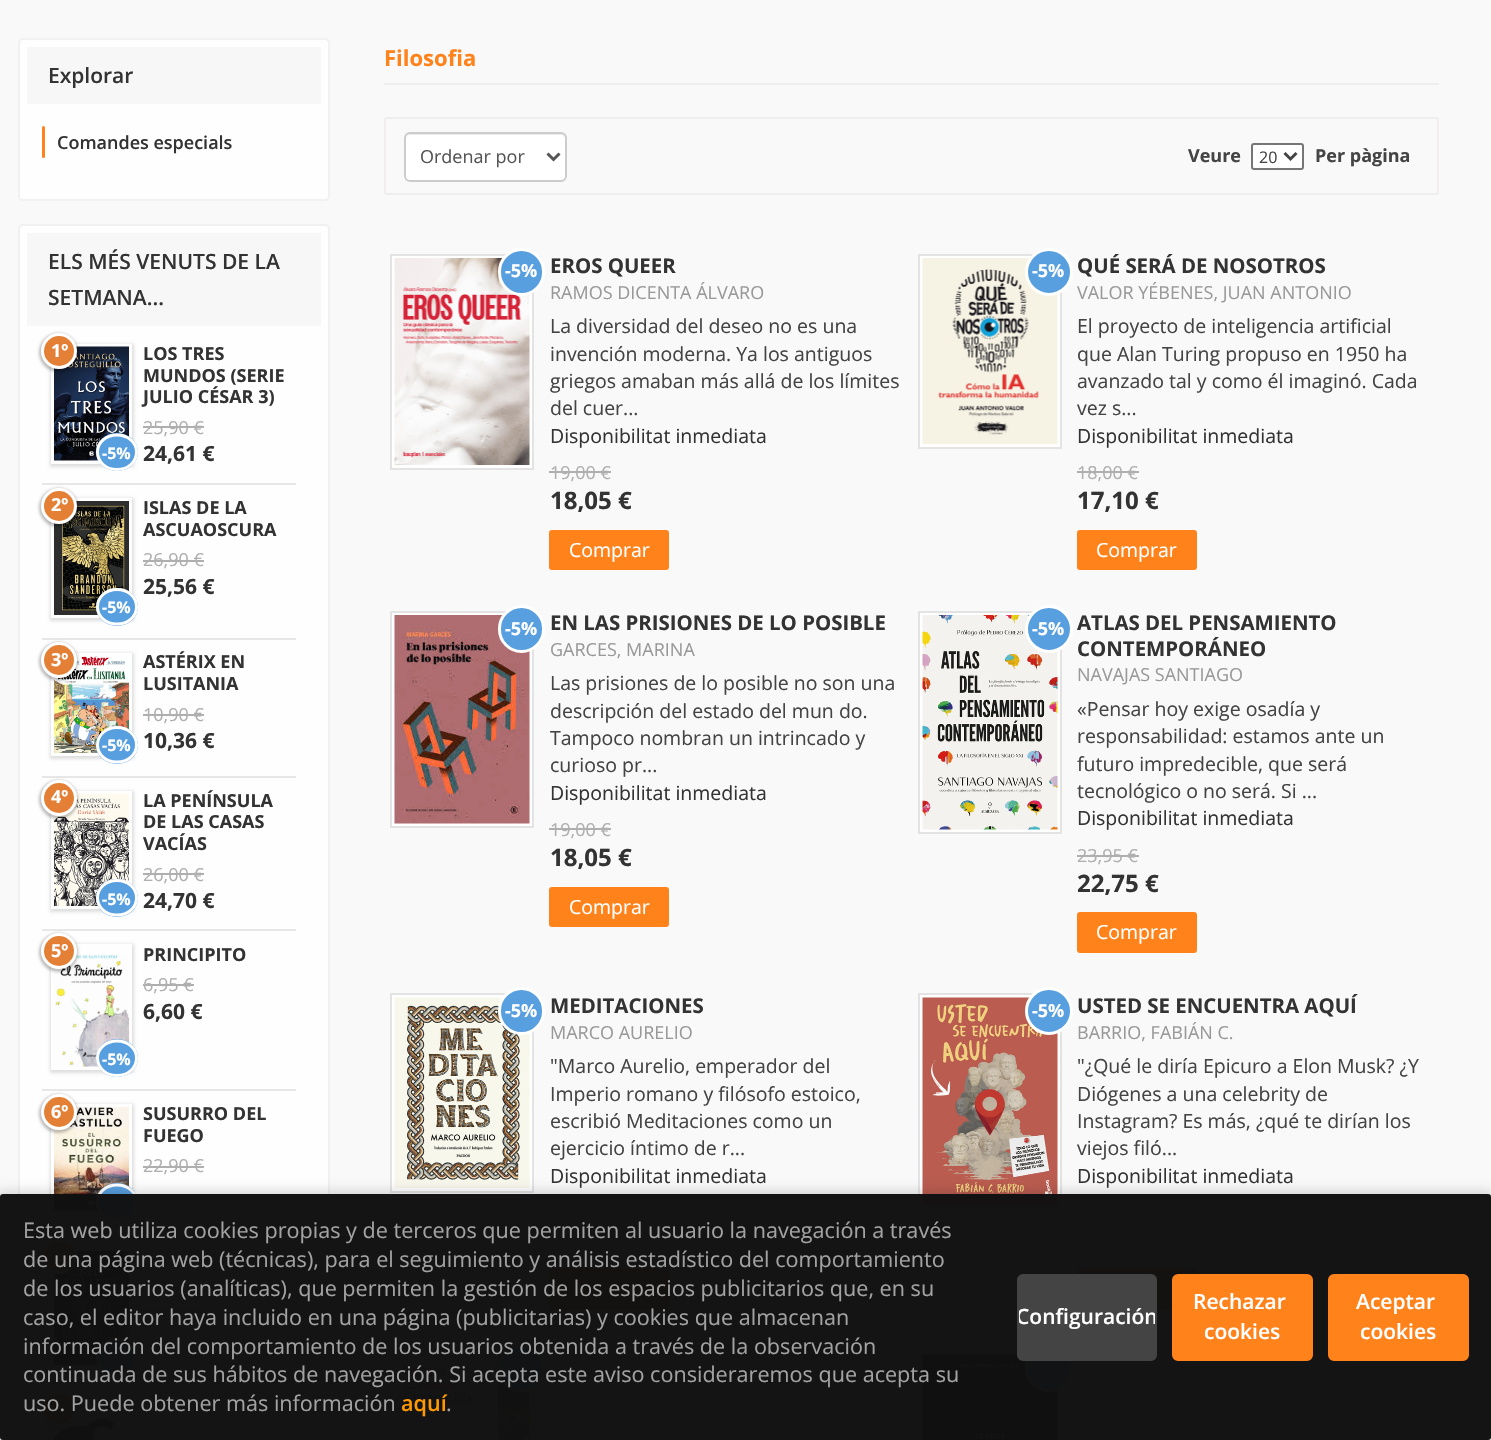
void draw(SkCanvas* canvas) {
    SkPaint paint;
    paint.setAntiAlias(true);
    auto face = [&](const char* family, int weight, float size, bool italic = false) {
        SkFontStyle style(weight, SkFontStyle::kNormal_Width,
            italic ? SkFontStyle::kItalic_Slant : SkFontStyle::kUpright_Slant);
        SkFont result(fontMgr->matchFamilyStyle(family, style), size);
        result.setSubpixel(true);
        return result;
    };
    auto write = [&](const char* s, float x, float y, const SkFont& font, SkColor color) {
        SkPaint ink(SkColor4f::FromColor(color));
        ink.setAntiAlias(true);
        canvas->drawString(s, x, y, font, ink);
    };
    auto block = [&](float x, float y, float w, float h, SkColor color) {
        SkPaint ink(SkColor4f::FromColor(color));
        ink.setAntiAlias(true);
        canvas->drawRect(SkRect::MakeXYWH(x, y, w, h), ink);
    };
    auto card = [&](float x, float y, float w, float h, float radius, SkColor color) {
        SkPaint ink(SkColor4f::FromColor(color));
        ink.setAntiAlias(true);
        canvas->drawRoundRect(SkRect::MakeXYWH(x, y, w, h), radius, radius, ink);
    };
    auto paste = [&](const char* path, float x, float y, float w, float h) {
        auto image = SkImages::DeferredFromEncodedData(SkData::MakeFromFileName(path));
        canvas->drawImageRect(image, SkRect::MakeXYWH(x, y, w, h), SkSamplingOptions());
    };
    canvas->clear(SkColorSetRGB(249, 249, 249));
    paint.setColor(SkColorSetRGB(254, 254, 254));
    canvas->drawRoundRect(SkRect::MakeXYWH(19, 39, 310, 161), 4, 4, paint);
    paint.setStyle(SkPaint::kStroke_Style);
    paint.setStrokeWidth(2);
    paint.setColor(SkColorSetRGB(241, 241, 241));
    canvas->drawRoundRect(SkRect::MakeXYWH(19, 39, 310, 161), 4, 4, paint);
    block(27, 47, 294, 57, SkColorSetRGB(247, 247, 247));
    auto kFont1 = face("Open Sans", 600, 21);
    write("Explorar", 48, 83, kFont1, SkColorSetRGB(51, 51, 51));
    card(42, 126, 3, 32, 1.5f, SkColorSetRGB(255, 130, 27));
    auto kFont2 = face("Open Sans", 600, 18);
    write("Comandes especials", 57, 149, kFont2, SkColorSetRGB(51, 51, 51));
    paint.setStyle(SkPaint::kFill_Style);
    paint.setColor(SkColorSetRGB(254, 254, 254));
    canvas->drawRoundRect(SkRect::MakeXYWH(19, 225, 310, 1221), 4, 4, paint);
    paint.setStyle(SkPaint::kStroke_Style);
    paint.setColor(SkColorSetRGB(241, 241, 241));
    canvas->drawRoundRect(SkRect::MakeXYWH(19, 225, 310, 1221), 4, 4, paint);
    block(27, 233, 294, 93, SkColorSetRGB(247, 247, 247));
    write("ELS MÉS VENUTS DE LA", 48, 269, kFont1, SkColorSetRGB(51, 51, 51));
    write("SETMANA...", 48, 305, kFont1, SkColorSetRGB(51, 51, 51));
    block(42, 483, 254, 2, SkColorSetRGB(231, 231, 231));
    canvas->save();
    canvas->clipPath(SkPathBuilder(SkPathFillType::kEvenOdd).moveTo(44, 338).lineTo(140, 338).lineTo(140, 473).lineTo(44, 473).close().moveTo(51, 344).lineTo(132, 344).lineTo(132, 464).lineTo(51, 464).close().detach(), true);
    paint.setStyle(SkPaint::kFill_Style);
    paint.setColor(SkColorSetARGB(31, 0, 0, 0));
    paint.setMaskFilter(SkMaskFilter::MakeBlur(kNormal_SkBlurStyle, 1.5f));
    canvas->drawRect(SkRect::MakeXYWH(50, 344, 84, 123), paint);
    paint.setMaskFilter(nullptr);
    canvas->restore();
    paste("pic1.png", 54, 346, 75, 115);
    paint.setColor(SkColorSetARGB(64, 0, 0, 0));
    paint.setMaskFilter(SkMaskFilter::MakeBlur(kNormal_SkBlurStyle, 1.5f));
    canvas->drawRoundRect(SkRect::MakeXYWH(39, 333, 39, 39), 19.5f, 19.5f, paint);
    paint.setMaskFilter(nullptr);
    paint.setColor(SkColorSetRGB(227, 128, 53));
    canvas->drawCircle(59, 351, 16.5f, paint);
    paint.setStyle(SkPaint::kStroke_Style);
    paint.setStrokeWidth(3);
    paint.setColor(SK_ColorWHITE);
    canvas->drawCircle(59, 351, 16.5f, paint);
    auto kFont3 = face("Open Sans", 700, 18);
    write("1º", 51, 357, kFont3, SK_ColorWHITE);
    paint.setStyle(SkPaint::kFill_Style);
    paint.setColor(SkColorSetRGB(88, 159, 224));
    canvas->drawOval(SkRect::MakeXYWH(96, 433, 42, 38), paint);
    paint.setStyle(SkPaint::kStroke_Style);
    paint.setColor(SK_ColorWHITE);
    canvas->drawPath(SkPathBuilder().moveTo(117, 435).cubicTo(128, 435, 136.5f, 442.5f, 136.5f, 452).cubicTo(136.5f, 462, 128, 469.5f, 117, 469.5f).cubicTo(106, 469.5f, 97.5f, 462, 97.5f, 452).cubicTo(97.5f, 442.5f, 106, 435, 117, 435).close().detach(), paint);
    auto kFont4 = face("Open Sans", 700, 16);
    write("-5%", 102, 459, kFont4, SK_ColorWHITE);
    write("LOS TRES", 143, 360, kFont3, SkColorSetRGB(51, 51, 51));
    write("MUNDOS (SERIE", 143, 382, kFont3, SkColorSetRGB(51, 51, 51));
    write("JULIO CÉSAR 3)", 143, 403, kFont3, SkColorSetRGB(51, 51, 51));
    auto kFont5 = face("Open Sans", 400, 18);
    write("25,90 €", 143, 434, kFont5, SkColorSetRGB(175, 175, 175));
    block(143, 426, 61, 2, SkColorSetRGB(175, 175, 175));
    auto kFont6 = face("Open Sans", 700, 21);
    write("24,61 €", 143, 461, kFont6, SkColorSetRGB(51, 51, 51));
    block(42, 638, 254, 2, SkColorSetRGB(231, 231, 231));
    canvas->save();
    canvas->clipPath(SkPathBuilder(SkPathFillType::kEvenOdd).moveTo(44, 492).lineTo(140, 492).lineTo(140, 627).lineTo(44, 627).close().moveTo(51, 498).lineTo(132, 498).lineTo(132, 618).lineTo(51, 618).close().detach(), true);
    paint.setStyle(SkPaint::kFill_Style);
    paint.setColor(SkColorSetARGB(31, 0, 0, 0));
    paint.setMaskFilter(SkMaskFilter::MakeBlur(kNormal_SkBlurStyle, 1.5f));
    canvas->drawRect(SkRect::MakeXYWH(50, 498, 84, 123), paint);
    paint.setMaskFilter(nullptr);
    canvas->restore();
    paste("pic2.png", 54, 501, 75, 114);
    paint.setColor(SkColorSetARGB(64, 0, 0, 0));
    paint.setMaskFilter(SkMaskFilter::MakeBlur(kNormal_SkBlurStyle, 1.5f));
    canvas->drawRoundRect(SkRect::MakeXYWH(39, 488, 39, 39), 19.5f, 19.5f, paint);
    paint.setMaskFilter(nullptr);
    paint.setColor(SkColorSetRGB(227, 128, 53));
    canvas->drawCircle(59, 506, 16.5f, paint);
    paint.setStyle(SkPaint::kStroke_Style);
    paint.setColor(SK_ColorWHITE);
    canvas->drawCircle(59, 506, 16.5f, paint);
    write("2º", 51, 511, kFont3, SK_ColorWHITE);
    paint.setStyle(SkPaint::kFill_Style);
    paint.setColor(SkColorSetRGB(88, 159, 224));
    canvas->drawOval(SkRect::MakeXYWH(96, 588, 42, 38), paint);
    paint.setStyle(SkPaint::kStroke_Style);
    paint.setColor(SK_ColorWHITE);
    canvas->drawPath(SkPathBuilder().moveTo(117, 589.5f).cubicTo(128, 589.5f, 136.5f, 597, 136.5f, 607).cubicTo(136.5f, 616.5f, 128, 624, 117, 624).cubicTo(106, 624, 97.5f, 616.5f, 97.5f, 607).cubicTo(97.5f, 597, 106, 589.5f, 117, 589.5f).close().detach(), paint);
    write("-5%", 102, 613, kFont4, SK_ColorWHITE);
    write("ISLAS DE LA", 143, 514, kFont3, SkColorSetRGB(51, 51, 51));
    write("ASCUAOSCURA", 143, 536, kFont3, SkColorSetRGB(51, 51, 51));
    write("26,90 €", 143, 566, kFont5, SkColorSetRGB(175, 175, 175));
    block(143, 560, 61, 2, SkColorSetRGB(175, 175, 175));
    write("25,56 €", 143, 594, kFont6, SkColorSetRGB(51, 51, 51));
    block(42, 776, 254, 2, SkColorSetRGB(231, 231, 231));
    canvas->save();
    canvas->clipPath(SkPathBuilder(SkPathFillType::kEvenOdd).moveTo(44, 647).lineTo(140, 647).lineTo(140, 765).lineTo(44, 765).close().moveTo(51, 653).lineTo(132, 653).lineTo(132, 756).lineTo(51, 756).close().detach(), true);
    paint.setStyle(SkPaint::kFill_Style);
    paint.setColor(SkColorSetARGB(31, 0, 0, 0));
    paint.setMaskFilter(SkMaskFilter::MakeBlur(kNormal_SkBlurStyle, 1.5f));
    canvas->drawRect(SkRect::MakeXYWH(50, 653, 84, 106), paint);
    paint.setMaskFilter(nullptr);
    canvas->restore();
    paste("pic3.png", 54, 656, 75, 97);
    paint.setColor(SkColorSetARGB(64, 0, 0, 0));
    paint.setMaskFilter(SkMaskFilter::MakeBlur(kNormal_SkBlurStyle, 1.5f));
    canvas->drawRoundRect(SkRect::MakeXYWH(39, 642, 39, 39), 19.5f, 19.5f, paint);
    paint.setMaskFilter(nullptr);
    paint.setColor(SkColorSetRGB(227, 128, 53));
    canvas->drawCircle(59, 660, 16.5f, paint);
    paint.setStyle(SkPaint::kStroke_Style);
    paint.setColor(SK_ColorWHITE);
    canvas->drawCircle(59, 660, 16.5f, paint);
    write("3º", 51, 666, kFont3, SK_ColorWHITE);
    paint.setStyle(SkPaint::kFill_Style);
    paint.setColor(SkColorSetRGB(88, 159, 224));
    canvas->drawOval(SkRect::MakeXYWH(96, 726, 42, 38), paint);
    paint.setStyle(SkPaint::kStroke_Style);
    paint.setColor(SK_ColorWHITE);
    canvas->drawPath(SkPathBuilder().moveTo(117, 727.5f).cubicTo(128, 727.5f, 136.5f, 735, 136.5f, 745).cubicTo(136.5f, 754.5f, 128, 762, 117, 762).cubicTo(106, 762, 97.5f, 754.5f, 97.5f, 745).cubicTo(97.5f, 735, 106, 727.5f, 117, 727.5f).close().detach(), paint);
    write("-5%", 102, 751, kFont4, SK_ColorWHITE);
    write("ASTÉRIX EN", 143, 668, kFont3, SkColorSetRGB(51, 51, 51));
    write("LUSITANIA", 143, 690, kFont3, SkColorSetRGB(51, 51, 51));
    write("10,90 €", 143, 721, kFont5, SkColorSetRGB(175, 175, 175));
    block(143, 714, 61, 2, SkColorSetRGB(175, 175, 175));
    write("10,36 €", 143, 748, kFont6, SkColorSetRGB(51, 51, 51));
    block(42, 929, 254, 2, SkColorSetRGB(231, 231, 231));
    canvas->save();
    canvas->clipPath(SkPathBuilder(SkPathFillType::kEvenOdd).moveTo(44, 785).lineTo(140, 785).lineTo(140, 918).lineTo(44, 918).close().moveTo(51, 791).lineTo(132, 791).lineTo(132, 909).lineTo(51, 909).close().detach(), true);
    paint.setStyle(SkPaint::kFill_Style);
    paint.setColor(SkColorSetARGB(31, 0, 0, 0));
    paint.setMaskFilter(SkMaskFilter::MakeBlur(kNormal_SkBlurStyle, 1.5f));
    canvas->drawRect(SkRect::MakeXYWH(50, 791, 84, 121), paint);
    paint.setMaskFilter(nullptr);
    canvas->restore();
    paste("pic4.png", 54, 793, 75, 113);
    paint.setColor(SkColorSetARGB(64, 0, 0, 0));
    paint.setMaskFilter(SkMaskFilter::MakeBlur(kNormal_SkBlurStyle, 1.5f));
    canvas->drawRoundRect(SkRect::MakeXYWH(39, 780, 39, 39), 19.5f, 19.5f, paint);
    paint.setMaskFilter(nullptr);
    paint.setColor(SkColorSetRGB(227, 128, 53));
    canvas->drawCircle(59, 798, 16.5f, paint);
    paint.setStyle(SkPaint::kStroke_Style);
    paint.setColor(SK_ColorWHITE);
    canvas->drawCircle(59, 798, 16.5f, paint);
    write("4º", 51, 803, kFont3, SK_ColorWHITE);
    paint.setStyle(SkPaint::kFill_Style);
    paint.setColor(SkColorSetRGB(88, 159, 224));
    canvas->drawOval(SkRect::MakeXYWH(96, 879, 42, 38), paint);
    paint.setStyle(SkPaint::kStroke_Style);
    paint.setColor(SK_ColorWHITE);
    canvas->drawPath(SkPathBuilder().moveTo(117, 880.5f).cubicTo(128, 880.5f, 136.5f, 888, 136.5f, 898).cubicTo(136.5f, 907.5f, 128, 915, 117, 915).cubicTo(106, 915, 97.5f, 907.5f, 97.5f, 898).cubicTo(97.5f, 888, 106, 880.5f, 117, 880.5f).close().detach(), paint);
    write("-5%", 102, 905, kFont4, SK_ColorWHITE);
    write("LA PENÍNSULA", 143, 807, kFont3, SkColorSetRGB(51, 51, 51));
    write("DE LAS CASAS", 143, 828, kFont3, SkColorSetRGB(51, 51, 51));
    write("VACÍAS", 143, 850, kFont3, SkColorSetRGB(51, 51, 51));
    write("26,00 €", 143, 881, kFont5, SkColorSetRGB(175, 175, 175));
    block(143, 873, 61, 2, SkColorSetRGB(175, 175, 175));
    write("24,70 €", 143, 908, kFont6, SkColorSetRGB(51, 51, 51));
    block(42, 1089, 254, 2, SkColorSetRGB(231, 231, 231));
    canvas->save();
    canvas->clipPath(SkPathBuilder(SkPathFillType::kEvenOdd).moveTo(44, 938).lineTo(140, 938).lineTo(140, 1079).lineTo(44, 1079).close().moveTo(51, 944).lineTo(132, 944).lineTo(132, 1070).lineTo(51, 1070).close().detach(), true);
    paint.setStyle(SkPaint::kFill_Style);
    paint.setColor(SkColorSetARGB(31, 0, 0, 0));
    paint.setMaskFilter(SkMaskFilter::MakeBlur(kNormal_SkBlurStyle, 1.5f));
    canvas->drawRect(SkRect::MakeXYWH(50, 944, 84, 129), paint);
    paint.setMaskFilter(nullptr);
    canvas->restore();
    paste("pic5.png", 54, 954, 75, 113);
    paint.setColor(SkColorSetARGB(64, 0, 0, 0));
    paint.setMaskFilter(SkMaskFilter::MakeBlur(kNormal_SkBlurStyle, 1.5f));
    canvas->drawRoundRect(SkRect::MakeXYWH(39, 933, 39, 39), 19.5f, 19.5f, paint);
    paint.setMaskFilter(nullptr);
    paint.setColor(SkColorSetRGB(227, 128, 53));
    canvas->drawCircle(59, 951, 16.5f, paint);
    paint.setStyle(SkPaint::kStroke_Style);
    paint.setColor(SK_ColorWHITE);
    canvas->drawCircle(59, 951, 16.5f, paint);
    write("5º", 51, 957, kFont3, SK_ColorWHITE);
    paint.setStyle(SkPaint::kFill_Style);
    paint.setColor(SkColorSetRGB(88, 159, 224));
    canvas->drawOval(SkRect::MakeXYWH(96, 1039, 42, 38), paint);
    paint.setStyle(SkPaint::kStroke_Style);
    paint.setColor(SK_ColorWHITE);
    canvas->drawPath(SkPathBuilder().moveTo(117, 1041).cubicTo(128, 1041, 136.5f, 1048.5f, 136.5f, 1058).cubicTo(136.5f, 1068, 128, 1075.5f, 117, 1075.5f).cubicTo(106, 1075.5f, 97.5f, 1068, 97.5f, 1058).cubicTo(97.5f, 1048.5f, 106, 1041, 117, 1041).close().detach(), paint);
    write("-5%", 102, 1065, kFont4, SK_ColorWHITE);
    write("PRINCIPITO", 143, 961, kFont3, SkColorSetRGB(51, 51, 51));
    write("6,95 €", 143, 991, kFont5, SkColorSetRGB(175, 175, 175));
    block(143, 984, 51, 2, SkColorSetRGB(175, 175, 175));
    write("6,60 €", 143, 1019, kFont6, SkColorSetRGB(51, 51, 51));
    block(42, 1233, 254, 2, SkColorSetRGB(231, 231, 231));
    canvas->save();
    canvas->clipPath(SkPathBuilder(SkPathFillType::kEvenOdd).moveTo(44, 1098).lineTo(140, 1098).lineTo(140, 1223).lineTo(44, 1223).close().moveTo(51, 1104).lineTo(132, 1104).lineTo(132, 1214).lineTo(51, 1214).close().detach(), true);
    paint.setStyle(SkPaint::kFill_Style);
    paint.setColor(SkColorSetARGB(31, 0, 0, 0));
    paint.setMaskFilter(SkMaskFilter::MakeBlur(kNormal_SkBlurStyle, 1.5f));
    canvas->drawRect(SkRect::MakeXYWH(50, 1104, 84, 113), paint);
    paint.setMaskFilter(nullptr);
    canvas->restore();
    paste("pic6.png", 54, 1107, 75, 104);
    paint.setColor(SkColorSetARGB(64, 0, 0, 0));
    paint.setMaskFilter(SkMaskFilter::MakeBlur(kNormal_SkBlurStyle, 1.5f));
    canvas->drawRoundRect(SkRect::MakeXYWH(39, 1094, 39, 39), 19.5f, 19.5f, paint);
    paint.setMaskFilter(nullptr);
    paint.setColor(SkColorSetRGB(227, 128, 53));
    canvas->drawCircle(59, 1112, 16.5f, paint);
    paint.setStyle(SkPaint::kStroke_Style);
    paint.setColor(SK_ColorWHITE);
    canvas->drawCircle(59, 1112, 16.5f, paint);
    write("6º", 51, 1118, kFont3, SK_ColorWHITE);
    paint.setStyle(SkPaint::kFill_Style);
    paint.setColor(SkColorSetRGB(88, 159, 224));
    canvas->drawOval(SkRect::MakeXYWH(96, 1183, 42, 38), paint);
    paint.setStyle(SkPaint::kStroke_Style);
    paint.setColor(SK_ColorWHITE);
    canvas->drawPath(SkPathBuilder().moveTo(117, 1185).cubicTo(128, 1185, 136.5f, 1192.5f, 136.5f, 1202).cubicTo(136.5f, 1212, 128, 1219.5f, 117, 1219.5f).cubicTo(106, 1219.5f, 97.5f, 1212, 97.5f, 1202).cubicTo(97.5f, 1192.5f, 106, 1185, 117, 1185).close().detach(), paint);
    write("SUSURRO DEL", 143, 1120, kFont3, SkColorSetRGB(51, 51, 51));
    write("FUEGO", 143, 1142, kFont3, SkColorSetRGB(51, 51, 51));
    write("22,90 €", 143, 1172, kFont5, SkColorSetRGB(175, 175, 175));
    block(143, 1166, 61, 2, SkColorSetRGB(175, 175, 175));
    block(42, 1388, 254, 2, SkColorSetRGB(231, 231, 231));
    canvas->save();
    canvas->clipPath(SkPathBuilder(SkPathFillType::kEvenOdd).moveTo(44, 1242).lineTo(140, 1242).lineTo(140, 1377).lineTo(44, 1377).close().moveTo(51, 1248).lineTo(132, 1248).lineTo(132, 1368).lineTo(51, 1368).close().detach(), true);
    paint.setStyle(SkPaint::kFill_Style);
    paint.setColor(SkColorSetARGB(31, 0, 0, 0));
    paint.setMaskFilter(SkMaskFilter::MakeBlur(kNormal_SkBlurStyle, 1.5f));
    canvas->drawRect(SkRect::MakeXYWH(50, 1248, 84, 123), paint);
    paint.setMaskFilter(nullptr);
    canvas->restore();
    paste("pic7.png", 54, 1251, 75, 114);
    paint.setColor(SkColorSetARGB(64, 0, 0, 0));
    paint.setMaskFilter(SkMaskFilter::MakeBlur(kNormal_SkBlurStyle, 1.5f));
    canvas->drawRoundRect(SkRect::MakeXYWH(39, 1238, 39, 39), 19.5f, 19.5f, paint);
    paint.setMaskFilter(nullptr);
    paint.setColor(SkColorSetRGB(227, 128, 53));
    canvas->drawCircle(59, 1256, 16.5f, paint);
    paint.setStyle(SkPaint::kStroke_Style);
    paint.setColor(SK_ColorWHITE);
    canvas->drawCircle(59, 1256, 16.5f, paint);
    paint.setStyle(SkPaint::kFill_Style);
    paint.setColor(SkColorSetRGB(88, 159, 224));
    canvas->drawOval(SkRect::MakeXYWH(96, 1338, 42, 38), paint);
    paint.setStyle(SkPaint::kStroke_Style);
    paint.setColor(SK_ColorWHITE);
    canvas->drawPath(SkPathBuilder().moveTo(117, 1339.5f).cubicTo(128, 1339.5f, 136.5f, 1347, 136.5f, 1357).cubicTo(136.5f, 1366.5f, 128, 1374, 117, 1374).cubicTo(106, 1374, 97.5f, 1366.5f, 97.5f, 1357).cubicTo(97.5f, 1347, 106, 1339.5f, 117, 1339.5f).close().detach(), paint);
    block(143, 1310, 61, 2, SkColorSetRGB(175, 175, 175));
    canvas->save();
    canvas->clipPath(SkPathBuilder(SkPathFillType::kEvenOdd).moveTo(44, 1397).lineTo(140, 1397).lineTo(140, 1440).lineTo(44, 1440).close().moveTo(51, 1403).lineTo(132, 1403).lineTo(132, 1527).lineTo(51, 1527).close().detach(), true);
    paint.setStyle(SkPaint::kFill_Style);
    paint.setColor(SkColorSetARGB(31, 0, 0, 0));
    paint.setMaskFilter(SkMaskFilter::MakeBlur(kNormal_SkBlurStyle, 1.5f));
    canvas->drawRect(SkRect::MakeXYWH(50, 1403, 84, 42), paint);
    paint.setMaskFilter(nullptr);
    canvas->restore();
    paste("pic8.png", 54, 1419, 61, 21);
    paint.setColor(SkColorSetARGB(64, 0, 0, 0));
    paint.setMaskFilter(SkMaskFilter::MakeBlur(kNormal_SkBlurStyle, 1.5f));
    canvas->drawRoundRect(SkRect::MakeXYWH(39, 1391, 39, 39), 19.5f, 19.5f, paint);
    paint.setMaskFilter(nullptr);
    paint.setColor(SkColorSetRGB(227, 128, 53));
    canvas->drawCircle(59, 1409, 16.5f, paint);
    paint.setStyle(SkPaint::kStroke_Style);
    paint.setColor(SK_ColorWHITE);
    canvas->drawCircle(59, 1409, 16.5f, paint);
    block(384, 83, 1055, 2, SkColorSetRGB(238, 238, 238));
    auto kFont7 = face("Open Sans", 700, 22);
    write("Filosofia", 384, 66, kFont7, SkColorSetRGB(255, 130, 27));
    paint.setStrokeWidth(2);
    paint.setColor(SkColorSetRGB(239, 237, 237));
    canvas->drawRoundRect(SkRect::MakeXYWH(385, 118, 1053, 76), 2, 2, paint);
    card(404, 132, 163, 50, 6, SK_ColorWHITE);
    paint.setStyle(SkPaint::kFill_Style);
    paint.setColor(SkColorSetRGB(236, 236, 236));
    canvas->drawPath(SkPathBuilder().moveTo(410, 135).lineTo(561, 135).cubicTo(563, 135, 566, 137, 566, 140).lineTo(566, 139).cubicTo(566, 136, 564, 134, 561, 134).lineTo(410, 134).cubicTo(407, 134, 405, 136, 405, 139).lineTo(405, 140).cubicTo(405, 137, 407, 135, 410, 135).close().detach(), paint);
    paint.setStyle(SkPaint::kStroke_Style);
    paint.setColor(SkColorSetRGB(204, 204, 204));
    canvas->drawRoundRect(SkRect::MakeXYWH(405, 133, 161, 48), 5, 5, paint);
    paint.setStrokeWidth(3);
    paint.setColor(SkColorSetRGB(85, 85, 85));
    canvas->drawPath(SkPathBuilder().moveTo(547.5f, 153.5f).lineTo(553.5f, 159.5f).lineTo(559.5f, 153.5f).detach(), paint);
    write("Ordenar por", 420, 163, kFont5, SkColorSetRGB(85, 85, 85));
    write("Veure", 1188, 162, kFont3, SkColorSetRGB(68, 68, 68));
    paint.setStyle(SkPaint::kFill_Style);
    paint.setColor(SK_ColorWHITE);
    canvas->drawRoundRect(SkRect::MakeXYWH(1252, 144, 51, 25), 2, 2, paint);
    paint.setStyle(SkPaint::kStroke_Style);
    paint.setStrokeWidth(2);
    paint.setColor(SkColorSetRGB(118, 118, 118));
    canvas->drawRoundRect(SkRect::MakeXYWH(1252, 144, 51, 25), 2, 2, paint);
    paint.setStrokeWidth(3);
    paint.setColor(SkColorSetRGB(68, 68, 68));
    canvas->drawPath(SkPathBuilder().moveTo(1284.5f, 153).lineTo(1290.5f, 159).lineTo(1296.5f, 153).detach(), paint);
    auto kFont8 = face("Open Sans", 400, 16);
    write("20", 1259, 163, kFont8, SkColorSetRGB(68, 68, 68));
    write("Per pàgina", 1315, 162, kFont3, SkColorSetRGB(68, 68, 68));
    paint.setStyle(SkPaint::kFill_Style);
    paint.setColor(SK_ColorWHITE);
    canvas->drawRect(SkRect::MakeXYWH(391, 255, 142, 214), paint);
    paint.setStyle(SkPaint::kStroke_Style);
    paint.setStrokeWidth(2);
    paint.setColor(SkColorSetRGB(227, 227, 227));
    canvas->drawRect(SkRect::MakeXYWH(391, 255, 142, 214), paint);
    paste("pic9.png", 394, 258, 136, 207);
    paint.setStyle(SkPaint::kFill_Style);
    paint.setColor(SkColorSetRGB(88, 159, 224));
    canvas->drawRoundRect(SkRect::MakeXYWH(499.5f, 249.5f, 44, 45), 22, 22, paint);
    paint.setStyle(SkPaint::kStroke_Style);
    paint.setStrokeWidth(3);
    paint.setColor(SK_ColorWHITE);
    canvas->drawRoundRect(SkRect::MakeXYWH(499.5f, 249.5f, 44, 45), 22, 22, paint);
    write("-5%", 505, 277, kFont3, SK_ColorWHITE);
    auto kFont9 = face("Open Sans", 700, 20.4f);
    write("EROS QUEER", 550, 273, kFont9, SkColorSetRGB(51, 51, 51));
    write("RAMOS DICENTA ÁLVARO", 550, 299, kFont5, SkColorSetRGB(153, 153, 153));
    auto kFont10 = face("Open Sans", 400, 19.5f);
    write("La diversidad del deseo no es una", 550, 333, kFont10, SkColorSetRGB(68, 68, 68));
    write("invención moderna. Ya los antiguos", 550, 361, kFont10, SkColorSetRGB(68, 68, 68));
    write("griegos amaban más allá de los límites", 550, 388, kFont10, SkColorSetRGB(68, 68, 68));
    write("del cuer...", 550, 415, kFont10, SkColorSetRGB(68, 68, 68));
    write("Disponibilitat inmediata", 550, 443, kFont10, SkColorSetRGB(51, 51, 51));
    write("19,00 €", 550, 479, kFont5, SkColorSetRGB(175, 175, 175));
    block(549, 471, 62, 2, SkColorSetRGB(175, 175, 175));
    auto kFont11 = face("Open Sans", 700, 24);
    write("18,05 €", 550, 509, kFont11, SkColorSetRGB(51, 51, 51));
    paint.setStyle(SkPaint::kFill_Style);
    paint.setColor(SkColorSetRGB(255, 130, 27));
    canvas->drawRoundRect(SkRect::MakeXYWH(550, 531, 118, 38), 2, 2, paint);
    paint.setStyle(SkPaint::kStroke_Style);
    paint.setStrokeWidth(2);
    canvas->drawRoundRect(SkRect::MakeXYWH(550, 531, 118, 38), 2, 2, paint);
    write("Comprar", 569, 557, kFont10, SK_ColorWHITE);
    paint.setStyle(SkPaint::kFill_Style);
    paint.setColor(SK_ColorWHITE);
    canvas->drawRect(SkRect::MakeXYWH(919, 255, 142, 193), paint);
    paint.setStyle(SkPaint::kStroke_Style);
    paint.setColor(SkColorSetRGB(227, 227, 227));
    canvas->drawRect(SkRect::MakeXYWH(919, 255, 142, 193), paint);
    paste("pic10.png", 922, 258, 136, 186);
    paint.setStyle(SkPaint::kFill_Style);
    paint.setColor(SkColorSetRGB(88, 159, 224));
    canvas->drawCircle(1049, 272, 22.5f, paint);
    paint.setStyle(SkPaint::kStroke_Style);
    paint.setStrokeWidth(3);
    paint.setColor(SK_ColorWHITE);
    canvas->drawCircle(1049, 272, 22.5f, paint);
    write("-5%", 1032, 277, kFont3, SK_ColorWHITE);
    write("QUÉ SERÁ DE NOSOTROS", 1077, 273, kFont9, SkColorSetRGB(51, 51, 51));
    write("VALOR YÉBENES, JUAN ANTONIO", 1077, 299, kFont5, SkColorSetRGB(153, 153, 153));
    write("El proyecto de inteligencia artificial", 1077, 333, kFont10, SkColorSetRGB(68, 68, 68));
    write("que Alan Turing propuso en 1950 ha", 1077, 361, kFont10, SkColorSetRGB(68, 68, 68));
    write("avanzado tal y como él imaginó. Cada", 1077, 388, kFont10, SkColorSetRGB(68, 68, 68));
    write("vez s...", 1077, 415, kFont10, SkColorSetRGB(68, 68, 68));
    write("Disponibilitat inmediata", 1077, 443, kFont10, SkColorSetRGB(51, 51, 51));
    write("18,00 €", 1077, 479, kFont5, SkColorSetRGB(175, 175, 175));
    block(1077, 471, 62, 2, SkColorSetRGB(175, 175, 175));
    write("17,10 €", 1077, 509, kFont11, SkColorSetRGB(51, 51, 51));
    paint.setStyle(SkPaint::kFill_Style);
    paint.setColor(SkColorSetRGB(255, 130, 27));
    canvas->drawRoundRect(SkRect::MakeXYWH(1078, 531, 118, 38), 2, 2, paint);
    paint.setStyle(SkPaint::kStroke_Style);
    paint.setStrokeWidth(2);
    canvas->drawRoundRect(SkRect::MakeXYWH(1078, 531, 118, 38), 2, 2, paint);
    write("Comprar", 1096, 557, kFont10, SK_ColorWHITE);
    paint.setStyle(SkPaint::kFill_Style);
    paint.setColor(SK_ColorWHITE);
    canvas->drawRect(SkRect::MakeXYWH(391, 612, 142, 215), paint);
    paint.setStyle(SkPaint::kStroke_Style);
    paint.setColor(SkColorSetRGB(227, 227, 227));
    canvas->drawRect(SkRect::MakeXYWH(391, 612, 142, 215), paint);
    paste("pic11.png", 394, 615, 136, 209);
    paint.setStyle(SkPaint::kFill_Style);
    paint.setColor(SkColorSetRGB(88, 159, 224));
    canvas->drawRoundRect(SkRect::MakeXYWH(499.5f, 606.5f, 44, 45), 22, 22, paint);
    paint.setStyle(SkPaint::kStroke_Style);
    paint.setStrokeWidth(3);
    paint.setColor(SK_ColorWHITE);
    canvas->drawRoundRect(SkRect::MakeXYWH(499.5f, 606.5f, 44, 45), 22, 22, paint);
    write("-5%", 505, 635, kFont3, SK_ColorWHITE);
    write("EN LAS PRISIONES DE LO POSIBLE", 550, 630, kFont9, SkColorSetRGB(51, 51, 51));
    write("GARCES, MARINA", 550, 656, kFont5, SkColorSetRGB(153, 153, 153));
    write("Las prisiones de lo posible no son una", 550, 690, kFont10, SkColorSetRGB(68, 68, 68));
    write("descripción del estado del mun do.", 550, 718, kFont10, SkColorSetRGB(68, 68, 68));
    write("Tampoco nombran un intrincado y", 550, 745, kFont10, SkColorSetRGB(68, 68, 68));
    write("curioso pr...", 550, 772, kFont10, SkColorSetRGB(68, 68, 68));
    write("Disponibilitat inmediata", 550, 800, kFont10, SkColorSetRGB(51, 51, 51));
    write("19,00 €", 550, 836, kFont5, SkColorSetRGB(175, 175, 175));
    block(549, 828, 62, 2, SkColorSetRGB(175, 175, 175));
    write("18,05 €", 550, 866, kFont11, SkColorSetRGB(51, 51, 51));
    paint.setStyle(SkPaint::kFill_Style);
    paint.setColor(SkColorSetRGB(255, 130, 27));
    canvas->drawRoundRect(SkRect::MakeXYWH(550, 888, 118, 38), 2, 2, paint);
    paint.setStyle(SkPaint::kStroke_Style);
    paint.setStrokeWidth(2);
    canvas->drawRoundRect(SkRect::MakeXYWH(550, 888, 118, 38), 2, 2, paint);
    write("Comprar", 569, 914, kFont10, SK_ColorWHITE);
    paint.setStyle(SkPaint::kFill_Style);
    paint.setColor(SK_ColorWHITE);
    canvas->drawRect(SkRect::MakeXYWH(919, 612, 142, 221), paint);
    paint.setStyle(SkPaint::kStroke_Style);
    paint.setColor(SkColorSetRGB(227, 227, 227));
    canvas->drawRect(SkRect::MakeXYWH(919, 612, 142, 221), paint);
    paste("pic12.png", 922, 615, 136, 215);
    paint.setStyle(SkPaint::kFill_Style);
    paint.setColor(SkColorSetRGB(88, 159, 224));
    canvas->drawCircle(1049, 629, 22.5f, paint);
    paint.setStyle(SkPaint::kStroke_Style);
    paint.setStrokeWidth(3);
    paint.setColor(SK_ColorWHITE);
    canvas->drawCircle(1049, 629, 22.5f, paint);
    write("-5%", 1032, 635, kFont3, SK_ColorWHITE);
    write("ATLAS DEL PENSAMIENTO", 1077, 630, kFont9, SkColorSetRGB(51, 51, 51));
    write("CONTEMPORÁNEO", 1077, 656, kFont9, SkColorSetRGB(51, 51, 51));
    write("NAVAJAS SANTIAGO", 1077, 681, kFont5, SkColorSetRGB(153, 153, 153));
    write("«Pensar hoy exige osadía y", 1077, 716, kFont10, SkColorSetRGB(68, 68, 68));
    write("responsabilidad: estamos ante un", 1077, 743, kFont10, SkColorSetRGB(68, 68, 68));
    write("futuro impredecible, que será", 1077, 771, kFont10, SkColorSetRGB(68, 68, 68));
    write("tecnológico o no será. Si ...", 1077, 798, kFont10, SkColorSetRGB(68, 68, 68));
    write("Disponibilitat inmediata", 1077, 825, kFont10, SkColorSetRGB(51, 51, 51));
    write("23,95 €", 1077, 862, kFont5, SkColorSetRGB(175, 175, 175));
    block(1077, 855, 62, 2, SkColorSetRGB(175, 175, 175));
    write("22,75 €", 1077, 892, kFont11, SkColorSetRGB(51, 51, 51));
    paint.setStyle(SkPaint::kFill_Style);
    paint.setColor(SkColorSetRGB(255, 130, 27));
    canvas->drawRoundRect(SkRect::MakeXYWH(1078, 913, 118, 39), 2, 2, paint);
    paint.setStyle(SkPaint::kStroke_Style);
    paint.setStrokeWidth(2);
    canvas->drawRoundRect(SkRect::MakeXYWH(1078, 913, 118, 39), 2, 2, paint);
    write("Comprar", 1096, 939, kFont10, SK_ColorWHITE);
    paint.setStyle(SkPaint::kFill_Style);
    paint.setColor(SK_ColorWHITE);
    canvas->drawRect(SkRect::MakeXYWH(391, 994, 142, 198), paint);
    paint.setStyle(SkPaint::kStroke_Style);
    paint.setColor(SkColorSetRGB(227, 227, 227));
    canvas->drawRect(SkRect::MakeXYWH(391, 994, 142, 198), paint);
    paste("pic13.png", 394, 997, 136, 191);
    paint.setStyle(SkPaint::kFill_Style);
    paint.setColor(SkColorSetRGB(88, 159, 224));
    canvas->drawRoundRect(SkRect::MakeXYWH(499.5f, 988.5f, 44, 45), 22, 22, paint);
    paint.setStyle(SkPaint::kStroke_Style);
    paint.setStrokeWidth(3);
    paint.setColor(SK_ColorWHITE);
    canvas->drawRoundRect(SkRect::MakeXYWH(499.5f, 988.5f, 44, 45), 22, 22, paint);
    write("-5%", 505, 1017, kFont3, SK_ColorWHITE);
    write("MEDITACIONES", 550, 1013, kFont9, SkColorSetRGB(51, 51, 51));
    write("MARCO AURELIO", 550, 1039, kFont5, SkColorSetRGB(153, 153, 153));
    write("\"Marco Aurelio, emperador del", 550, 1073, kFont10, SkColorSetRGB(68, 68, 68));
    write("Imperio romano y filósofo estoico,", 550, 1101, kFont10, SkColorSetRGB(68, 68, 68));
    write("escribió Meditaciones como un", 550, 1128, kFont10, SkColorSetRGB(68, 68, 68));
    write("ejercicio íntimo de r...", 550, 1155, kFont10, SkColorSetRGB(68, 68, 68));
    write("Disponibilitat inmediata", 550, 1183, kFont10, SkColorSetRGB(51, 51, 51));
    block(549, 1212, 62, 2, SkColorSetRGB(175, 175, 175));
    paint.setStyle(SkPaint::kFill_Style);
    paint.setColor(SkColorSetRGB(255, 130, 27));
    canvas->drawRoundRect(SkRect::MakeXYWH(550, 1270, 118, 39), 2, 2, paint);
    paint.setStyle(SkPaint::kStroke_Style);
    paint.setStrokeWidth(2);
    canvas->drawRoundRect(SkRect::MakeXYWH(550, 1270, 118, 39), 2, 2, paint);
    paint.setStyle(SkPaint::kFill_Style);
    paint.setColor(SK_ColorWHITE);
    canvas->drawRect(SkRect::MakeXYWH(919, 994, 142, 214), paint);
    paint.setStyle(SkPaint::kStroke_Style);
    paint.setColor(SkColorSetRGB(227, 227, 227));
    canvas->drawRect(SkRect::MakeXYWH(919, 994, 142, 214), paint);
    paste("pic14.png", 922, 997, 136, 208);
    paint.setStyle(SkPaint::kFill_Style);
    paint.setColor(SkColorSetRGB(88, 159, 224));
    canvas->drawCircle(1049, 1011, 22.5f, paint);
    paint.setStyle(SkPaint::kStroke_Style);
    paint.setStrokeWidth(3);
    paint.setColor(SK_ColorWHITE);
    canvas->drawCircle(1049, 1011, 22.5f, paint);
    write("-5%", 1032, 1017, kFont3, SK_ColorWHITE);
    write("USTED SE ENCUENTRA AQUÍ", 1077, 1013, kFont9, SkColorSetRGB(51, 51, 51));
    write("BARRIO, FABIÁN C.", 1077, 1039, kFont5, SkColorSetRGB(153, 153, 153));
    write("\"¿Qué le diría Epicuro a Elon Musk? ¿Y", 1077, 1073, kFont10, SkColorSetRGB(68, 68, 68));
    write("Diógenes a una celebrity de", 1077, 1101, kFont10, SkColorSetRGB(68, 68, 68));
    write("Instagram? Es más, ¿qué te dirían los", 1077, 1128, kFont10, SkColorSetRGB(68, 68, 68));
    write("viejos filó...", 1077, 1155, kFont10, SkColorSetRGB(68, 68, 68));
    write("Disponibilitat inmediata", 1077, 1183, kFont10, SkColorSetRGB(51, 51, 51));
    block(1077, 1212, 62, 2, SkColorSetRGB(175, 175, 175));
    paint.setStyle(SkPaint::kFill_Style);
    paint.setColor(SkColorSetRGB(255, 130, 27));
    canvas->drawRoundRect(SkRect::MakeXYWH(1078, 1270, 118, 39), 2, 2, paint);
    paint.setStyle(SkPaint::kStroke_Style);
    paint.setStrokeWidth(2);
    canvas->drawRoundRect(SkRect::MakeXYWH(1078, 1270, 118, 39), 2, 2, paint);
    paint.setStyle(SkPaint::kFill_Style);
    paint.setColor(SK_ColorWHITE);
    canvas->drawRect(SkRect::MakeXYWH(391, 1351, 142, 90), paint);
    paint.setStyle(SkPaint::kStroke_Style);
    paint.setColor(SkColorSetRGB(227, 227, 227));
    canvas->drawRect(SkRect::MakeXYWH(391, 1351, 142, 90), paint);
    paste("pic15.png", 394, 1354, 136, 86);
    paint.setStyle(SkPaint::kFill_Style);
    paint.setColor(SkColorSetRGB(88, 159, 224));
    canvas->drawRoundRect(SkRect::MakeXYWH(499.5f, 1345.5f, 44, 45), 22, 22, paint);
    paint.setStyle(SkPaint::kStroke_Style);
    paint.setStrokeWidth(3);
    paint.setColor(SK_ColorWHITE);
    canvas->drawRoundRect(SkRect::MakeXYWH(499.5f, 1345.5f, 44, 45), 22, 22, paint);
    paint.setStyle(SkPaint::kFill_Style);
    canvas->drawRect(SkRect::MakeXYWH(919, 1351, 142, 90), paint);
    paint.setStyle(SkPaint::kStroke_Style);
    paint.setStrokeWidth(2);
    paint.setColor(SkColorSetRGB(227, 227, 227));
    canvas->drawRect(SkRect::MakeXYWH(919, 1351, 142, 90), paint);
    paste("pic16.png", 922, 1354, 136, 86);
    paint.setStyle(SkPaint::kFill_Style);
    paint.setColor(SkColorSetRGB(88, 159, 224));
    canvas->drawCircle(1049, 1368, 22.5f, paint);
    paint.setStyle(SkPaint::kStroke_Style);
    paint.setStrokeWidth(3);
    paint.setColor(SK_ColorWHITE);
    canvas->drawCircle(1049, 1368, 22.5f, paint);
    canvas->save();
    canvas->clipPath(SkPathBuilder(SkPathFillType::kEvenOdd).moveTo(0, 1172).lineTo(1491, 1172).lineTo(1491, 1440).lineTo(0, 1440).close().moveTo(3, 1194).lineTo(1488, 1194).cubicTo(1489.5f, 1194, 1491, 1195.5f, 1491, 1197).lineTo(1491, 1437).cubicTo(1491, 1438.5f, 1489.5f, 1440, 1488, 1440).lineTo(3, 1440).cubicTo(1.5f, 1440, 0, 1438.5f, 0, 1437).lineTo(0, 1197).cubicTo(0, 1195.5f, 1.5f, 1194, 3, 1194).close().detach(), true);
    paint.setStyle(SkPaint::kFill_Style);
    paint.setColor(SkColorSetARGB(38, 0, 0, 0));
    paint.setMaskFilter(SkMaskFilter::MakeBlur(kNormal_SkBlurStyle, 6));
    canvas->drawRoundRect(SkRect::MakeXYWH(-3, 1191, 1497, 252), 6, 6, paint);
    paint.setMaskFilter(nullptr);
    canvas->restore();
    card(0, 1194, 1491, 246, 3, SkColorSetARGB(250, 15, 15, 15));
    auto kFont12 = face("Open Sans", 400, 21.6f);
    write("Esta web utiliza cookies propias y de terceros que permiten al usuario la navegación a través", 23, 1238, kFont12, SkColorSetRGB(162, 162, 162));
    write("de una página web (técnicas), para el seguimiento y análisis estadístico del comportamiento", 23, 1267, kFont12, SkColorSetRGB(162, 162, 162));
    write("de los usuarios (analíticas), que permiten la gestión de los espacios publicitarios que, en su", 23, 1296, kFont12, SkColorSetRGB(162, 162, 162));
    write("caso, el editor haya incluido en una página (publicitarias) y cookies que almacenan", 23, 1325, kFont12, SkColorSetRGB(162, 162, 162));
    write("información del comportamiento de los usuarios obtenida a través de la observación", 23, 1354, kFont12, SkColorSetRGB(162, 162, 162));
    write("continuada de sus hábitos de navegación. Si acepta este aviso consideraremos que acepta su", 23, 1382, kFont12, SkColorSetRGB(162, 162, 162));
    write("uso. Puede obtener más información", 23, 1411, kFont12, SkColorSetRGB(162, 162, 162));
    auto kFont13 = face("Open Sans", 600, 21.6f);
    write("aquí", 401, 1411, kFont13, SkColorSetRGB(255, 153, 0));
    write(".", 446, 1411, kFont12, SkColorSetRGB(162, 162, 162));
    paint.setColor(SkColorSetRGB(68, 68, 68));
    canvas->drawRoundRect(SkRect::MakeXYWH(1018, 1275, 138, 85), 5, 5, paint);
    paint.setStyle(SkPaint::kStroke_Style);
    paint.setStrokeWidth(2);
    canvas->drawRoundRect(SkRect::MakeXYWH(1018, 1275, 138, 85), 5, 5, paint);
    canvas->save();
    canvas->clipPath(SkPathBuilder().moveTo(1024, 1275).lineTo(1150, 1275).cubicTo(1153, 1275, 1155, 1277, 1155, 1280).lineTo(1155, 1354).cubicTo(1155, 1357, 1153, 1359, 1150, 1359).lineTo(1024, 1359).cubicTo(1021, 1359, 1019, 1357, 1019, 1354).lineTo(1019, 1280).cubicTo(1019, 1277, 1021, 1275, 1024, 1275).close().detach(), true);
    write("Configuración", 1016, 1324, kFont1, SK_ColorWHITE);
    canvas->restore();
    paint.setStyle(SkPaint::kFill_Style);
    paint.setColor(SkColorSetRGB(255, 130, 27));
    canvas->drawRoundRect(SkRect::MakeXYWH(1173, 1275, 139, 85), 5, 5, paint);
    paint.setStyle(SkPaint::kStroke_Style);
    canvas->drawRoundRect(SkRect::MakeXYWH(1173, 1275, 139, 85), 5, 5, paint);
    write("Rechazar", 1193, 1309, kFont1, SK_ColorWHITE);
    write("cookies", 1204, 1339, kFont1, SK_ColorWHITE);
    paint.setStyle(SkPaint::kFill_Style);
    canvas->drawRoundRect(SkRect::MakeXYWH(1329, 1275, 139, 85), 5, 5, paint);
    paint.setStyle(SkPaint::kStroke_Style);
    canvas->drawRoundRect(SkRect::MakeXYWH(1329, 1275, 139, 85), 5, 5, paint);
    write("Aceptar", 1356, 1309, kFont1, SK_ColorWHITE);
    write("cookies", 1360, 1339, kFont1, SK_ColorWHITE);
}
